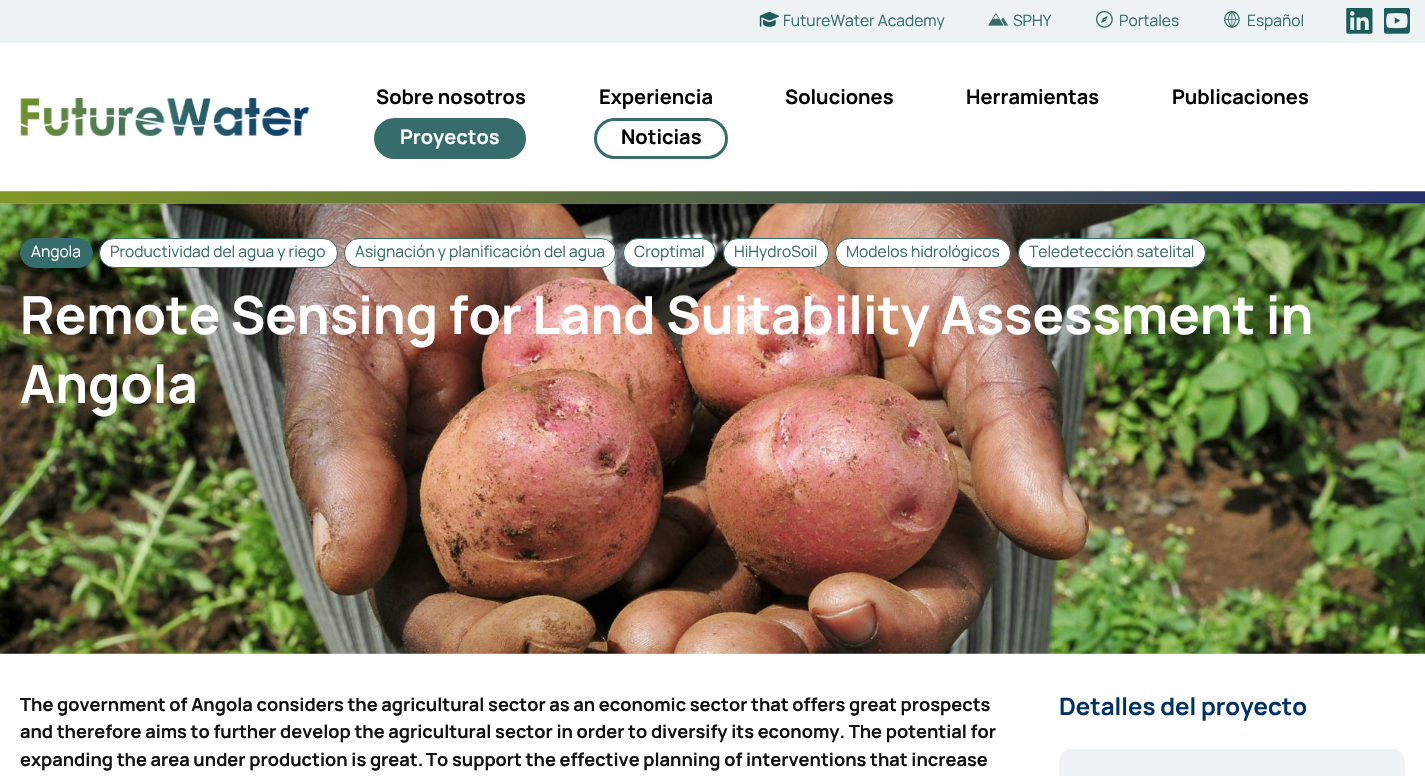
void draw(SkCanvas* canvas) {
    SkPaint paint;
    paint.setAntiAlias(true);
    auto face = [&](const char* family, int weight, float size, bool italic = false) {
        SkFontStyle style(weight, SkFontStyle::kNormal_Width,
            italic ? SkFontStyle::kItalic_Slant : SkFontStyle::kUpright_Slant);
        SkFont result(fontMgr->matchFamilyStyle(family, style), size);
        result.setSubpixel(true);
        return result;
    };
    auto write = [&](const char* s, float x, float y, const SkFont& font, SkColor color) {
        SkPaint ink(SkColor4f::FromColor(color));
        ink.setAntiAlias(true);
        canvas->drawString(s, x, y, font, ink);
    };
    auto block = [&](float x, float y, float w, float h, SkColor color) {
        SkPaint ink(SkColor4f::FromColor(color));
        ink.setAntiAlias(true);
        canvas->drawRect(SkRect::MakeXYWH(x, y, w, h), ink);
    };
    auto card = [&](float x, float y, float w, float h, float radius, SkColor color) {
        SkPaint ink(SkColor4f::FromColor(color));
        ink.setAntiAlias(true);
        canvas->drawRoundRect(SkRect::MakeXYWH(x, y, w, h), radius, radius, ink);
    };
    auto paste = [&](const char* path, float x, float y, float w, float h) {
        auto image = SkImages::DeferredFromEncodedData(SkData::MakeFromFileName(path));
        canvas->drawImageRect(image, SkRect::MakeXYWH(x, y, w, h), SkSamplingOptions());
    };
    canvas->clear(SK_ColorWHITE);
    paste("pic1.png", 0, 191, 1425, 13);
    block(0, 0, 1425, 43, SkColorSetRGB(237, 242, 244));
    paste("pic2.png", 759, 12, 20, 15);
    auto kFont1 = face("Manrope", 400, 15.6f);
    write("FutureWater Academy", 783, 26, kFont1, SkColorSetRGB(54, 108, 107));
    paste("pic3.png", 988, 13, 20, 13);
    write("SPHY", 1013, 26, kFont1, SkColorSetRGB(54, 108, 107));
    paste("pic4.png", 1096, 11, 17, 17);
    write("Portales", 1119, 26, kFont1, SkColorSetRGB(54, 108, 107));
    paste("pic5.png", 1224, 11, 16, 17);
    write("Español", 1247, 26, kFont1, SkColorSetRGB(54, 108, 107));
    paste("pic6.png", 1346, 8, 27, 26);
    paste("pic7.png", 1384, 8, 26, 26);
    paste("pic8.png", 20, 98, 290, 39);
    auto kFont2 = face("Manrope", 700, 20);
    write("Sobre nosotros", 376, 104, kFont2, SK_ColorBLACK);
    write("Experiencia", 599, 104, kFont2, SK_ColorBLACK);
    write("Soluciones", 785, 104, kFont2, SK_ColorBLACK);
    write("Herramientas", 966, 104, kFont2, SK_ColorBLACK);
    write("Publicaciones", 1172, 104, kFont2, SK_ColorBLACK);
    paint.setColor(SkColorSetRGB(54, 108, 107));
    canvas->drawRoundRect(SkRect::MakeXYWH(375.5f, 119.5f, 149, 38), 19, 19, paint);
    paint.setStyle(SkPaint::kStroke_Style);
    paint.setStrokeWidth(3);
    canvas->drawRoundRect(SkRect::MakeXYWH(375.5f, 119.5f, 149, 38), 19, 19, paint);
    write("Proyectos", 400, 144, kFont2, SK_ColorWHITE);
    canvas->drawRoundRect(SkRect::MakeXYWH(595.5f, 119.5f, 131, 38), 19, 19, paint);
    write("Noticias", 621, 144, kFont2, SK_ColorBLACK);
    paste("pic9.png", 0, 203, 1425, 451);
    paint.setStyle(SkPaint::kFill_Style);
    canvas->drawRoundRect(SkRect::MakeXYWH(20.5f, 238.5f, 72, 29), 14.5f, 14.5f, paint);
    paint.setStyle(SkPaint::kStroke_Style);
    paint.setStrokeWidth(1);
    canvas->drawRoundRect(SkRect::MakeXYWH(20.5f, 238.5f, 72, 29), 14.5f, 14.5f, paint);
    write("Angola", 31, 257, kFont1, SK_ColorWHITE);
    paint.setStyle(SkPaint::kFill_Style);
    paint.setColor(SK_ColorWHITE);
    canvas->drawRoundRect(SkRect::MakeXYWH(99.5f, 238.5f, 238, 29), 14.5f, 14.5f, paint);
    paint.setStyle(SkPaint::kStroke_Style);
    paint.setColor(SkColorSetRGB(54, 108, 107));
    canvas->drawRoundRect(SkRect::MakeXYWH(99.5f, 238.5f, 238, 29), 14.5f, 14.5f, paint);
    write("Productividad del agua y riego", 110, 257, kFont1, SkColorSetRGB(54, 108, 107));
    paint.setStyle(SkPaint::kFill_Style);
    paint.setColor(SK_ColorWHITE);
    canvas->drawRoundRect(SkRect::MakeXYWH(344.5f, 238.5f, 271, 29), 14.5f, 14.5f, paint);
    paint.setStyle(SkPaint::kStroke_Style);
    paint.setColor(SkColorSetRGB(54, 108, 107));
    canvas->drawRoundRect(SkRect::MakeXYWH(344.5f, 238.5f, 271, 29), 14.5f, 14.5f, paint);
    write("Asignación y planificación del agua", 355, 257, kFont1, SkColorSetRGB(54, 108, 107));
    paint.setStyle(SkPaint::kFill_Style);
    paint.setColor(SK_ColorWHITE);
    canvas->drawRoundRect(SkRect::MakeXYWH(623.5f, 238.5f, 92, 29), 14.5f, 14.5f, paint);
    paint.setStyle(SkPaint::kStroke_Style);
    paint.setColor(SkColorSetRGB(54, 108, 107));
    canvas->drawRoundRect(SkRect::MakeXYWH(623.5f, 238.5f, 92, 29), 14.5f, 14.5f, paint);
    write("Croptimal", 634, 257, kFont1, SkColorSetRGB(54, 108, 107));
    paint.setStyle(SkPaint::kFill_Style);
    paint.setColor(SK_ColorWHITE);
    canvas->drawRoundRect(SkRect::MakeXYWH(723.5f, 238.5f, 105, 29), 14.5f, 14.5f, paint);
    paint.setStyle(SkPaint::kStroke_Style);
    paint.setColor(SkColorSetRGB(54, 108, 107));
    canvas->drawRoundRect(SkRect::MakeXYWH(723.5f, 238.5f, 105, 29), 14.5f, 14.5f, paint);
    write("HiHydroSoil", 734, 257, kFont1, SkColorSetRGB(54, 108, 107));
    paint.setStyle(SkPaint::kFill_Style);
    paint.setColor(SK_ColorWHITE);
    canvas->drawRoundRect(SkRect::MakeXYWH(835.5f, 238.5f, 175, 29), 14.5f, 14.5f, paint);
    paint.setStyle(SkPaint::kStroke_Style);
    paint.setColor(SkColorSetRGB(54, 108, 107));
    canvas->drawRoundRect(SkRect::MakeXYWH(835.5f, 238.5f, 175, 29), 14.5f, 14.5f, paint);
    write("Modelos hidrológicos", 846, 257, kFont1, SkColorSetRGB(54, 108, 107));
    paint.setStyle(SkPaint::kFill_Style);
    paint.setColor(SK_ColorWHITE);
    canvas->drawRoundRect(SkRect::MakeXYWH(1018.5f, 238.5f, 187, 29), 14.5f, 14.5f, paint);
    paint.setStyle(SkPaint::kStroke_Style);
    paint.setColor(SkColorSetRGB(54, 108, 107));
    canvas->drawRoundRect(SkRect::MakeXYWH(1018.5f, 238.5f, 187, 29), 14.5f, 14.5f, paint);
    write("Teledetección satelital", 1029, 257, kFont1, SkColorSetRGB(54, 108, 107));
    auto kFont3 = face("Manrope", 700, 52.5f);
    write("Remote Sensing for Land Suitability Assessment in", 20, 334, kFont3, SK_ColorWHITE);
    write("Angola", 20, 403, kFont3, SK_ColorWHITE);
    auto kFont4 = face("Manrope", 700, 18.2f);
    write("The government of Angola considers the agricultural sector as an economic sector that offers great prospects", 20, 711, kFont4, SkColorSetRGB(17, 17, 17));
    write("and therefore aims to further develop the agricultural sector in order to diversify its economy. The potential for", 20, 738, kFont4, SkColorSetRGB(17, 17, 17));
    write("expanding the area under production is great.", 20, 766, kFont4, SkColorSetRGB(17, 17, 17));
    write("To support the effective planning of interventions that increase", 426, 766, kFont4, SkColorSetRGB(17, 17, 17));
    auto kFont5 = face("Manrope", 700, 24);
    write("Detalles del proyecto", 1059, 715, kFont5, SkColorSetRGB(0, 50, 104));
    card(1059, 749, 346, 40, 13, SkColorSetRGB(237, 242, 244));
}
